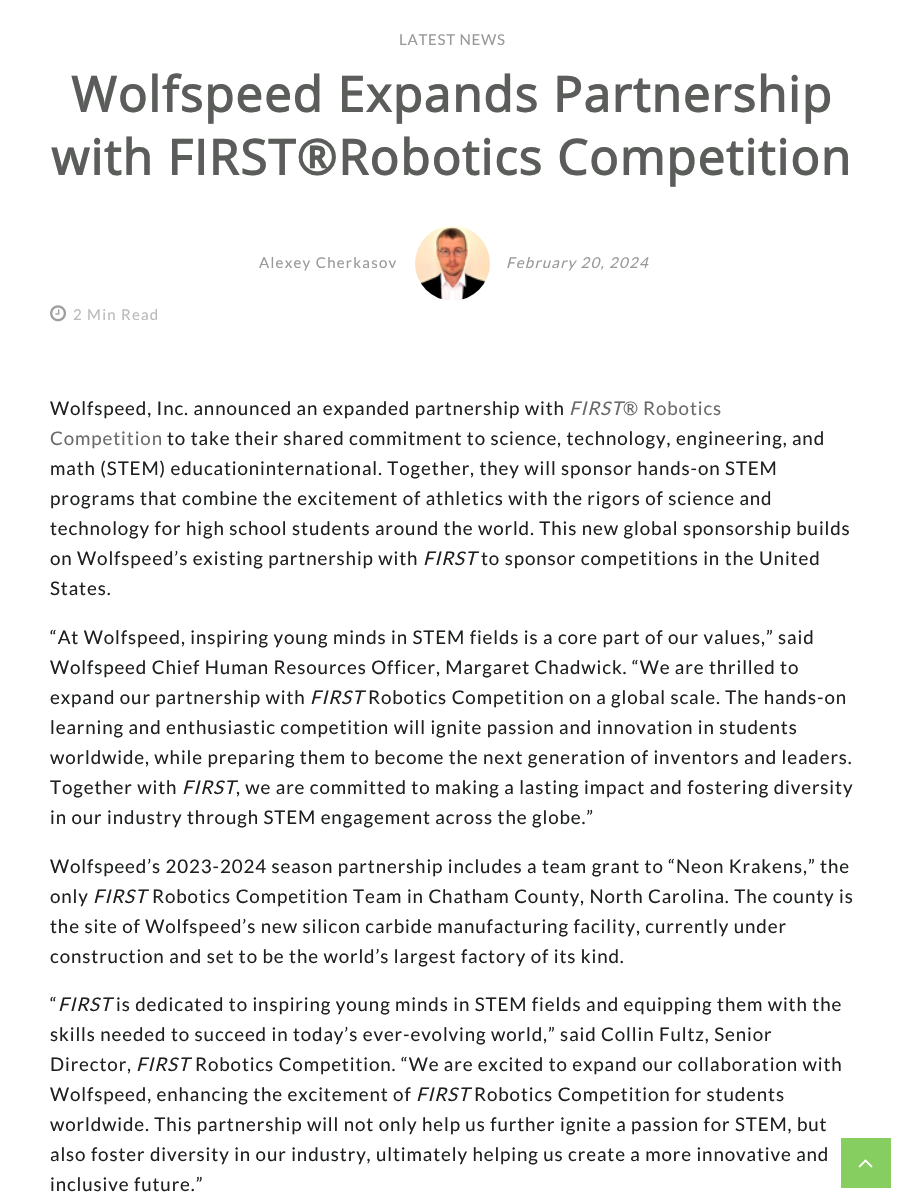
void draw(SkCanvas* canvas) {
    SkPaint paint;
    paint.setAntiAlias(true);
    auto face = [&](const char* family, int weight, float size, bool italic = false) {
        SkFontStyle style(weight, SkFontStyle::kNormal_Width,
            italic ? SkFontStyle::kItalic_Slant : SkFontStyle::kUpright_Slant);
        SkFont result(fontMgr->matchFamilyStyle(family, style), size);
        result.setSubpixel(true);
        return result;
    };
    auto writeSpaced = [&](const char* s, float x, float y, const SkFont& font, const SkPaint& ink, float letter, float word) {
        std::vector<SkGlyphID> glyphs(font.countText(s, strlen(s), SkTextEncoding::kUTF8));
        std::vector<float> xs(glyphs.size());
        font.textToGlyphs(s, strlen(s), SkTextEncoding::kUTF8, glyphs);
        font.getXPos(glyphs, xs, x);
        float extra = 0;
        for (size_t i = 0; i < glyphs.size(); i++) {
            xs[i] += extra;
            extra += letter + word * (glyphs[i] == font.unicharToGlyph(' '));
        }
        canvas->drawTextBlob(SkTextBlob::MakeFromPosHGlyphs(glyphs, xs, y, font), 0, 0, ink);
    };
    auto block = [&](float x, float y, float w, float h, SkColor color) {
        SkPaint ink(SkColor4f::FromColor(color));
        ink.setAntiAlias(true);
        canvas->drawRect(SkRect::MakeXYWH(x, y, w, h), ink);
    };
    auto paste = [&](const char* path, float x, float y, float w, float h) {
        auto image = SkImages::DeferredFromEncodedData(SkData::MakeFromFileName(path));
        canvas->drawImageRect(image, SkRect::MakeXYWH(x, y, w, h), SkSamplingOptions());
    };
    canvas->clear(SK_ColorWHITE);
    auto kFont1 = face("Lato", 400, 15);
    paint.setColor(SkColorSetRGB(153, 153, 153));
    writeSpaced("LATEST NEWS", 399, 45, kFont1, paint, 0.75f, 0);
    auto kFont2 = face("Open Sans", 700, 48.75f);
    paint.setColor(SkColorSetRGB(90, 93, 90));
    writeSpaced("Wolfspeed Expands Partnership", 71, 112, kFont2, paint, 1.25f, 0);
    writeSpaced("with FIRST®Robotics Competition", 51, 175, kFont2, paint, 1.25f, 0);
    paint.setColor(SkColorSetRGB(153, 153, 153));
    writeSpaced("Alexey Cherkasov", 259, 268, kFont1, paint, 1.25f, 0);
    paste("pic1.png", 415, 226, 75, 75);
    auto kFont3 = face("Lato", 400, 15, true);
    writeSpaced("February 20, 2024", 506, 268, kFont3, paint, 1.25f, 0);
    paste("pic2.png", 50, 305, 16, 17);
    paint.setColor(SkColorSetRGB(186, 186, 186));
    writeSpaced("2 Min Read", 73, 320, kFont1, paint, 1.25f, 0);
    auto kFont4 = face("Lato", 400, 18.75f);
    paint.setColor(SkColorSetRGB(30, 32, 33));
    writeSpaced("Wolfspeed, Inc. announced an expanded partnership with", 50, 415, kFont4, paint, 0.88f, 0);
    auto kFont5 = face("Lato", 400, 18.75f, true);
    paint.setColor(SkColorSetRGB(107, 107, 107));
    writeSpaced("FIRST", 569, 415, kFont5, paint, 0.88f, 0);
    writeSpaced("®", 623, 415, kFont4, paint, 0.88f, 0);
    writeSpaced("Robotics", 643, 415, kFont4, paint, 0.88f, 0);
    writeSpaced("Competition", 50, 445, kFont4, paint, 0.88f, 0);
    paint.setColor(SkColorSetRGB(30, 32, 33));
    writeSpaced("to take their shared commitment to science, technology, engineering, and", 167, 445, kFont4, paint, 0.88f, 0);
    writeSpaced("math (STEM) educationinternational. Together, they will sponsor hands-on STEM", 50, 475, kFont4, paint, 0.88f, 0);
    writeSpaced("programs that combine the excitement of athletics with the rigors of science and", 50, 505, kFont4, paint, 0.88f, 0);
    writeSpaced("technology for high school students around the world. This new global sponsorship builds", 50, 535, kFont4, paint, 0.88f, 0);
    writeSpaced("on Wolfspeed’s existing partnership with", 50, 565, kFont4, paint, 0.88f, 0);
    writeSpaced("FIRST", 423, 565, kFont5, paint, 0.88f, 0);
    writeSpaced("to sponsor competitions in the United", 481, 565, kFont4, paint, 0.88f, 0);
    writeSpaced("States.", 50, 595, kFont4, paint, 0.88f, 0);
    writeSpaced("“At Wolfspeed, inspiring young minds in STEM fields is a core part of our values,” said", 50, 644, kFont4, paint, 0.88f, 0);
    writeSpaced("Wolfspeed Chief Human Resources Officer, Margaret Chadwick. “We are thrilled to", 50, 674, kFont4, paint, 0.88f, 0);
    writeSpaced("expand our partnership with", 50, 704, kFont4, paint, 0.88f, 0);
    writeSpaced("FIRST", 310, 704, kFont5, paint, 0.88f, 0);
    writeSpaced("Robotics Competition on a global scale. The hands-on", 368, 704, kFont4, paint, 0.88f, 0);
    writeSpaced("learning and enthusiastic competition will ignite passion and innovation in students", 50, 734, kFont4, paint, 0.88f, 0);
    writeSpaced("worldwide, while preparing them to become the next generation of inventors and leaders.", 50, 764, kFont4, paint, 0.88f, 0);
    writeSpaced("Together with", 50, 794, kFont4, paint, 0.88f, 0);
    writeSpaced("FIRST", 182, 794, kFont5, paint, 0.88f, 0);
    writeSpaced(", we are committed to making a lasting impact and fostering diversity", 236, 794, kFont4, paint, 0.88f, 0);
    writeSpaced("in our industry through STEM engagement across the globe.”", 50, 824, kFont4, paint, 0.88f, 0);
    writeSpaced("Wolfspeed’s 2023-2024 season partnership includes a team grant to “Neon Krakens,” the", 50, 873, kFont4, paint, 0.88f, 0);
    writeSpaced("only", 50, 903, kFont4, paint, 0.88f, 0);
    writeSpaced("FIRST", 93, 903, kFont5, paint, 0.88f, 0);
    writeSpaced("Robotics Competition Team in Chatham County, North Carolina. The county is", 152, 903, kFont4, paint, 0.88f, 0);
    writeSpaced("the site of Wolfspeed’s new silicon carbide manufacturing facility, currently under", 50, 933, kFont4, paint, 0.88f, 0);
    writeSpaced("construction and set to be the world’s largest factory of its kind.", 50, 963, kFont4, paint, 0.88f, 0);
    writeSpaced("“", 50, 1011, kFont4, paint, 0.88f, 0);
    writeSpaced("FIRST", 58, 1011, kFont5, paint, 0.88f, 0);
    writeSpaced("is dedicated to inspiring young minds in STEM fields and equipping them with the", 116, 1011, kFont4, paint, 0.88f, 0);
    writeSpaced("skills needed to succeed in today’s ever-evolving world,” said Collin Fultz, Senior", 50, 1041, kFont4, paint, 0.88f, 0);
    writeSpaced("Director,", 50, 1071, kFont4, paint, 0.88f, 0);
    writeSpaced("FIRST", 136, 1071, kFont5, paint, 0.88f, 0);
    writeSpaced("Robotics Competition. “We are excited to expand our collaboration with", 195, 1071, kFont4, paint, 0.88f, 0);
    writeSpaced("Wolfspeed, enhancing the excitement of", 50, 1101, kFont4, paint, 0.88f, 0);
    writeSpaced("FIRST", 416, 1101, kFont5, paint, 0.88f, 0);
    writeSpaced("Robotics Competition for students", 474, 1101, kFont4, paint, 0.88f, 0);
    writeSpaced("worldwide. This partnership will not only help us further ignite a passion for STEM, but", 50, 1131, kFont4, paint, 0.88f, 0);
    writeSpaced("also foster diversity in our industry, ultimately helping us create a more innovative and", 50, 1161, kFont4, paint, 0.88f, 0);
    writeSpaced("inclusive future.”", 50, 1191, kFont4, paint, 0.88f, 0);
    block(841, 1138, 50, 50, SkColorSetRGB(135, 206, 97));
    paste("pic3.png", 858, 1159, 15, 9);
}
